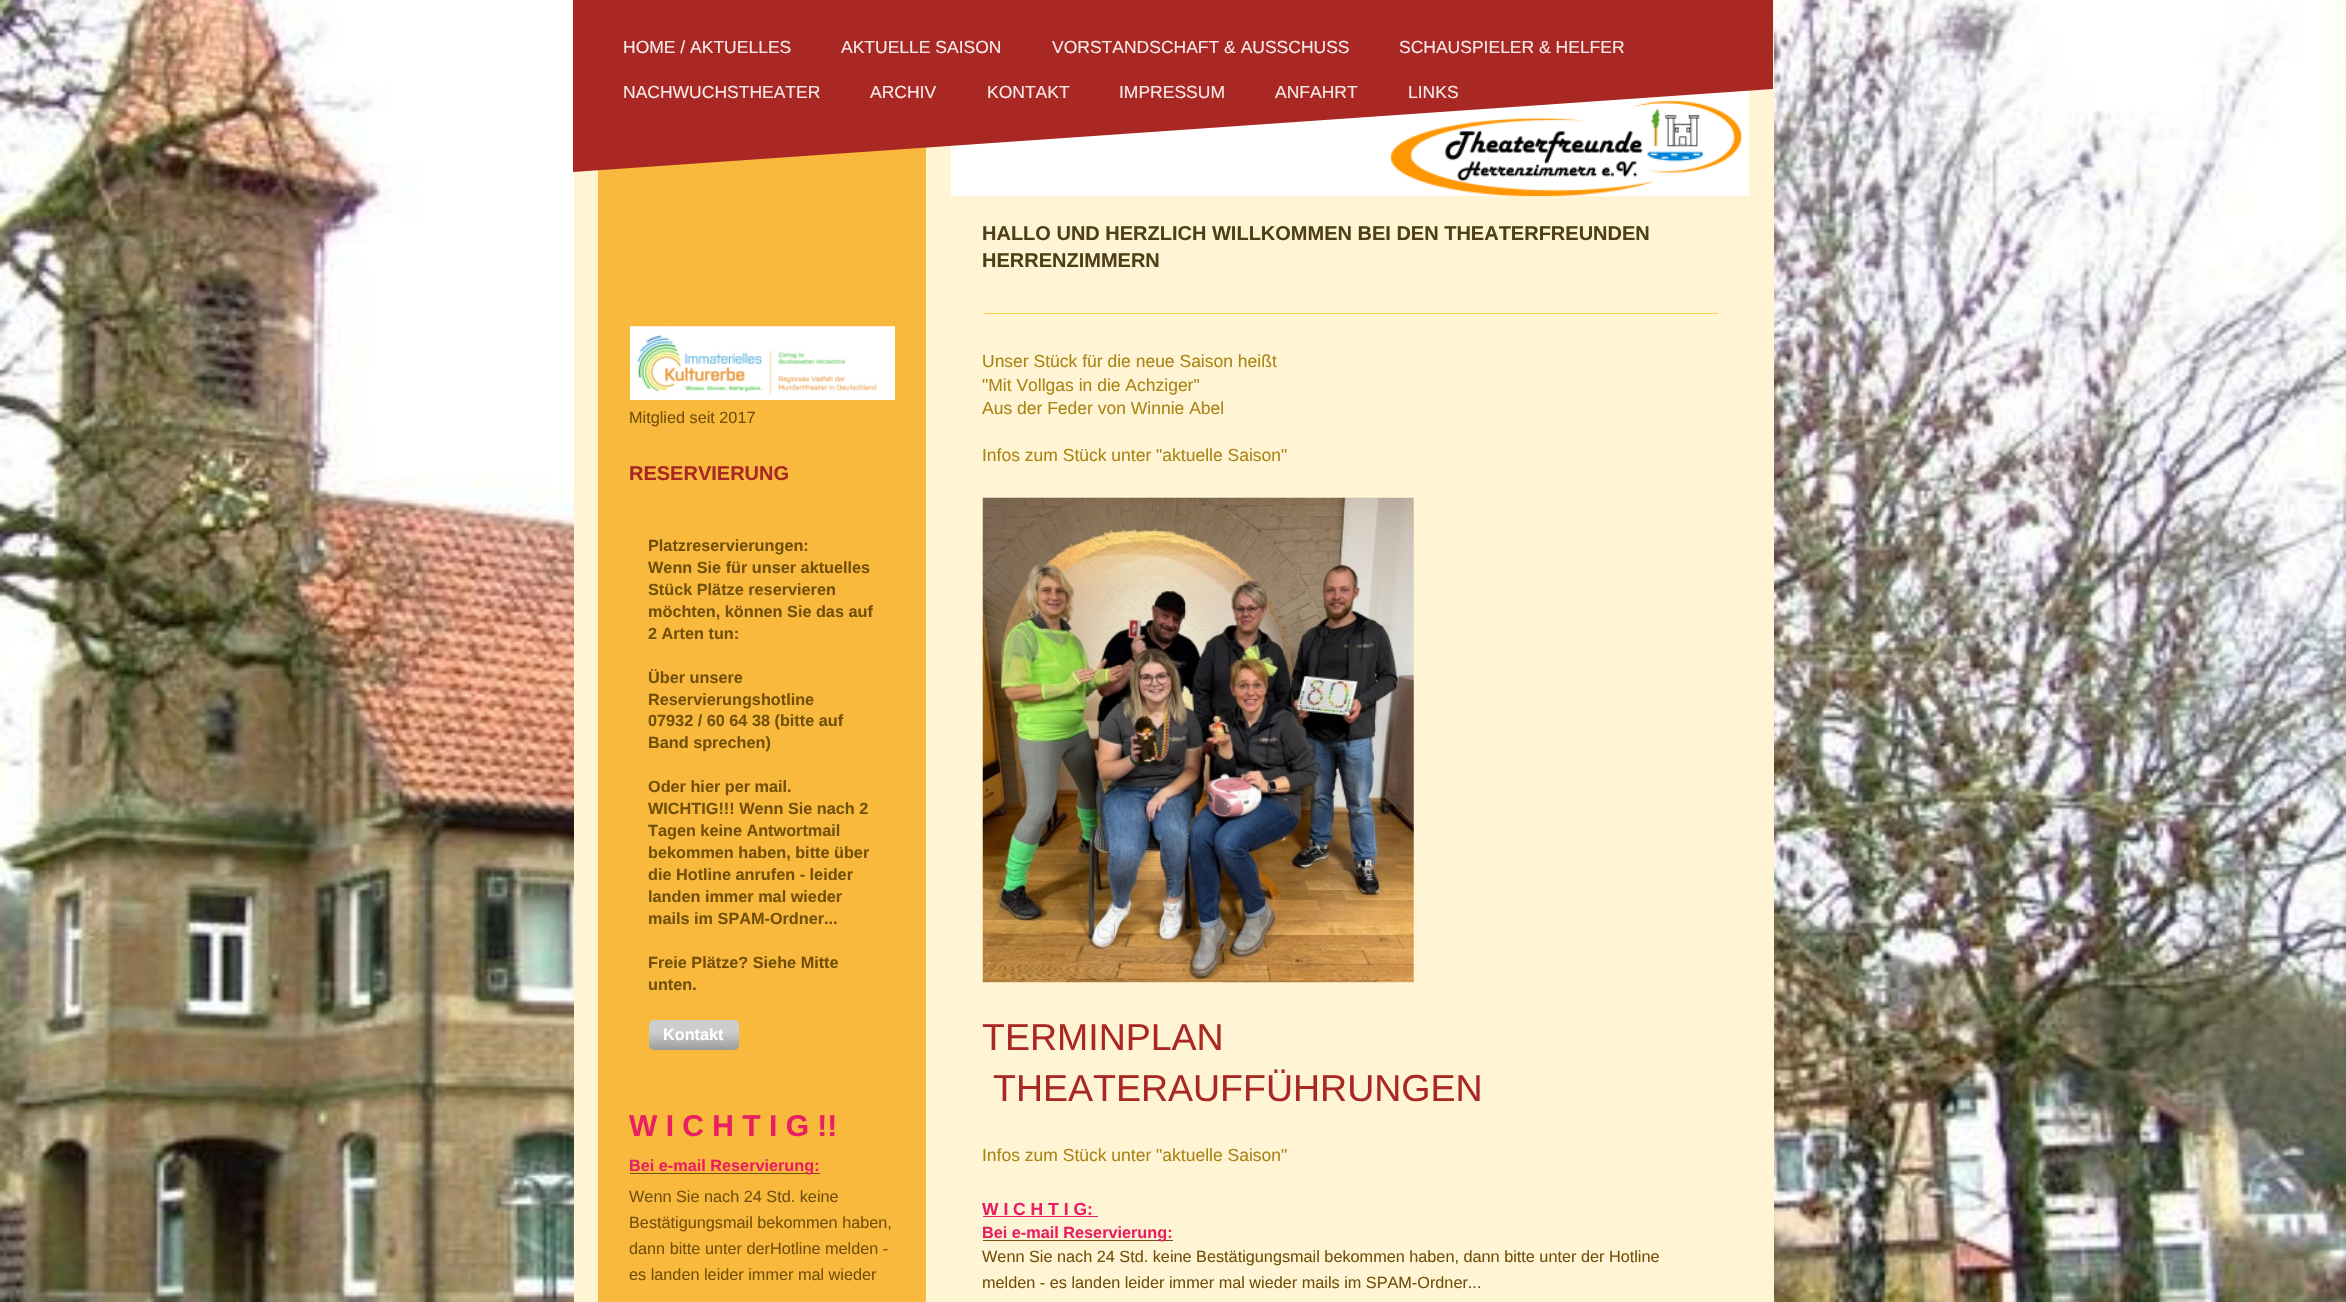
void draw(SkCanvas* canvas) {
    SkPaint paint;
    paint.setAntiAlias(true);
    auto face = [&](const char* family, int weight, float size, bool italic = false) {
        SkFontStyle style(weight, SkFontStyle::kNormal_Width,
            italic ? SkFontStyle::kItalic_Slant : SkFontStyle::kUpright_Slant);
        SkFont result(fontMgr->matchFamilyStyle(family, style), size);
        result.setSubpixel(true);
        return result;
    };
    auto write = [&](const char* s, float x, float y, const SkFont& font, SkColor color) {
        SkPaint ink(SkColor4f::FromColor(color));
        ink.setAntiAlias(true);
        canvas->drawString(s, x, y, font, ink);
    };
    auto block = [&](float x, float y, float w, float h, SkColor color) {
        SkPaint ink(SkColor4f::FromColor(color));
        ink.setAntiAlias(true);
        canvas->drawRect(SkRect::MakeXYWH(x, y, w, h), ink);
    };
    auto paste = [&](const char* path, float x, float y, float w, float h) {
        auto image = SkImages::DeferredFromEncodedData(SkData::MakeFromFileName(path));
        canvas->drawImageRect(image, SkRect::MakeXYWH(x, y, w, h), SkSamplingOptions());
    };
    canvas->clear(SK_ColorWHITE);
    paste("pic1.png", 0, 0, 2346, 1302);
    block(574, 0, 1200, 1302, SkColorSetRGB(255, 244, 211));
    paint.setColor(SkColorSetRGB(248, 185, 60));
    canvas->drawPath(SkPathBuilder().moveTo(598, 161).lineTo(926, 138).lineTo(926, 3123).lineTo(598, 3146).close().detach(), paint);
    block(951, 90, 798, 106, SK_ColorWHITE);
    paste("pic2.png", 1390, 100, 352, 97);
    paint.setColor(SkColorSetRGB(169, 40, 36));
    canvas->drawPath(SkPathBuilder().moveTo(573, -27).lineTo(1773, -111).lineTo(1773, 89).lineTo(573, 172).close().detach(), paint);
    auto kFont1 = face("Liberation Sans", 400, 17.5f);
    write("HOME / AKTUELLES", 623, 53, kFont1, SkColorSetRGB(246, 234, 233));
    write("AKTUELLE SAISON", 841, 53, kFont1, SkColorSetRGB(246, 234, 233));
    write("VORSTANDSCHAFT & AUSSCHUSS", 1052, 53, kFont1, SkColorSetRGB(246, 234, 233));
    write("SCHAUSPIELER & HELFER", 1399, 53, kFont1, SkColorSetRGB(246, 234, 233));
    write("NACHWUCHSTHEATER", 623, 98, kFont1, SkColorSetRGB(246, 234, 233));
    write("ARCHIV", 870, 98, kFont1, SkColorSetRGB(246, 234, 233));
    write("KONTAKT", 987, 98, kFont1, SkColorSetRGB(246, 234, 233));
    write("IMPRESSUM", 1119, 98, kFont1, SkColorSetRGB(246, 234, 233));
    write("ANFAHRT", 1275, 98, kFont1, SkColorSetRGB(246, 234, 233));
    write("LINKS", 1408, 98, kFont1, SkColorSetRGB(246, 234, 233));
    auto kFont2 = face("Liberation Sans", 700, 20);
    write("HALLO UND HERZLICH WILLKOMMEN BEI DEN THEATERFREUNDEN", 982, 240, kFont2, SkColorSetRGB(78, 64, 21));
    write("HERRENZIMMERN", 982, 267, kFont2, SkColorSetRGB(78, 64, 21));
    block(983, 313, 735, 1, SkColorSetRGB(255, 210, 73));
    write("Unser Stück für die neue Saison heißt", 982, 367, kFont1, SkColorSetRGB(170, 132, 21));
    write("\"Mit Vollgas in die Achziger\"", 982, 391, kFont1, SkColorSetRGB(170, 132, 21));
    write("Aus der Feder von Winnie Abel", 982, 414, kFont1, SkColorSetRGB(170, 132, 21));
    write("Infos zum Stück unter \"aktuelle Saison\"", 982, 461, kFont1, SkColorSetRGB(170, 132, 21));
    paste("pic3.png", 982, 497, 432, 486);
    auto kFont3 = face("Liberation Sans", 400, 37.5f);
    write("TERMINPLAN", 982, 1050, kFont3, SkColorSetRGB(169, 40, 36));
    write("THEATERAUFFÜHRUNGEN", 993, 1101, kFont3, SkColorSetRGB(169, 40, 36));
    write("Infos zum Stück unter \"aktuelle Saison\"", 982, 1161, kFont1, SkColorSetRGB(170, 132, 21));
    auto kFont4 = face("Liberation Sans", 700, 17.5f);
    write("W I C H T I G:", 982, 1215, kFont4, SkColorSetRGB(233, 30, 99));
    block(983, 1216, 115, 1, SkColorSetRGB(233, 30, 99));
    block(983, 1240, 190, 1, SkColorSetRGB(115, 80, 9));
    auto kFont5 = face("Liberation Sans", 700, 16.25f);
    write("Bei e-mail Reservierung:", 982, 1238, kFont5, SkColorSetRGB(233, 30, 99));
    auto kFont6 = face("Liberation Sans", 400, 16.25f);
    write("Wenn Sie nach 24 Std. keine Bestätigungsmail bekommen haben, dann bitte unter der Hotline", 982, 1262, kFont6, SkColorSetRGB(115, 80, 9));
    write("melden - es landen leider immer mal wieder mails im SPAM-Ordner...", 982, 1288, kFont6, SkColorSetRGB(115, 80, 9));
    paste("pic4.png", 630, 326, 265, 74);
    write("Mitglied seit 2017", 629, 423, kFont6, SkColorSetRGB(115, 80, 9));
    write("RESERVIERUNG", 629, 480, kFont2, SkColorSetRGB(169, 40, 36));
    write("Platzreservierungen:", 648, 551, kFont5, SkColorSetRGB(115, 80, 9));
    write("Wenn Sie für unser aktuelles", 648, 573, kFont5, SkColorSetRGB(115, 80, 9));
    write("Stück Plätze reservieren", 648, 595, kFont5, SkColorSetRGB(115, 80, 9));
    write("möchten, können Sie das auf", 648, 617, kFont5, SkColorSetRGB(115, 80, 9));
    write("2 Arten tun:", 648, 639, kFont5, SkColorSetRGB(115, 80, 9));
    write("Über unsere", 648, 683, kFont5, SkColorSetRGB(115, 80, 9));
    write("Reservierungshotline", 648, 705, kFont5, SkColorSetRGB(115, 80, 9));
    write("07932 / 60 64 38 (bitte auf", 648, 726, kFont5, SkColorSetRGB(115, 80, 9));
    write("Band sprechen)", 648, 748, kFont5, SkColorSetRGB(115, 80, 9));
    write("Oder hier per mail.", 648, 792, kFont5, SkColorSetRGB(115, 80, 9));
    write("WICHTIG!!! Wenn Sie nach 2", 648, 814, kFont5, SkColorSetRGB(115, 80, 9));
    write("Tagen keine Antwortmail", 648, 836, kFont5, SkColorSetRGB(115, 80, 9));
    write("bekommen haben, bitte über", 648, 858, kFont5, SkColorSetRGB(115, 80, 9));
    write("die Hotline anrufen - leider", 648, 880, kFont5, SkColorSetRGB(115, 80, 9));
    write("landen immer mal wieder", 648, 902, kFont5, SkColorSetRGB(115, 80, 9));
    write("mails im SPAM-Ordner...", 648, 924, kFont5, SkColorSetRGB(115, 80, 9));
    write("Freie Plätze? Siehe Mitte", 648, 968, kFont5, SkColorSetRGB(115, 80, 9));
    write("unten.", 648, 990, kFont5, SkColorSetRGB(115, 80, 9));
    {
        const SkColor colors[] = {SkColorSetRGB(204, 205, 205), SkColorSetRGB(155, 155, 155)};
        const float stops[] = {0.4f, 1};
        const SkPoint ends[] = {{694, 1020}, {694, 1050}};
        paint.setShader(SkGradientShader::MakeLinear(ends, colors, stops, 2, SkTileMode::kClamp));
        paint.setAlpha(255);
    }
    canvas->drawRoundRect(SkRect::MakeXYWH(649, 1020, 90, 30), 5, 5, paint);
    write("Kontakt", 663, 1040, kFont5, SK_ColorWHITE);
    auto kFont7 = face("Liberation Sans", 700, 30);
    write("W I C H T I G !!", 629, 1136, kFont7, SkColorSetRGB(233, 30, 99));
    block(630, 1173, 190, 1, SkColorSetRGB(115, 80, 9));
    write("Bei e-mail Reservierung:", 629, 1171, kFont5, SkColorSetRGB(233, 30, 99));
    write("Wenn Sie nach 24 Std. keine", 629, 1202, kFont6, SkColorSetRGB(115, 80, 9));
    write("Bestätigungsmail bekommen haben,", 629, 1228, kFont6, SkColorSetRGB(115, 80, 9));
    write("dann bitte unter derHotline melden -", 629, 1254, kFont6, SkColorSetRGB(115, 80, 9));
    write("es landen leider immer mal wieder", 629, 1280, kFont6, SkColorSetRGB(115, 80, 9));
}
